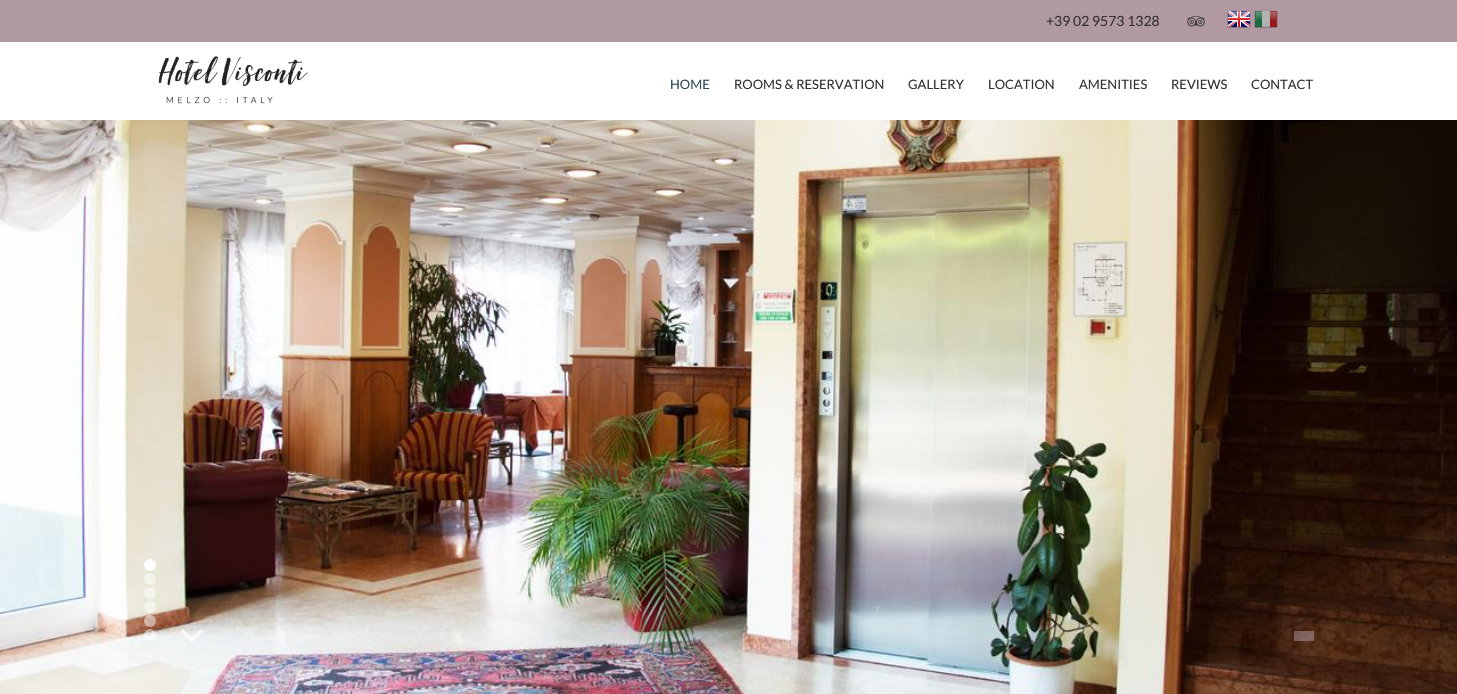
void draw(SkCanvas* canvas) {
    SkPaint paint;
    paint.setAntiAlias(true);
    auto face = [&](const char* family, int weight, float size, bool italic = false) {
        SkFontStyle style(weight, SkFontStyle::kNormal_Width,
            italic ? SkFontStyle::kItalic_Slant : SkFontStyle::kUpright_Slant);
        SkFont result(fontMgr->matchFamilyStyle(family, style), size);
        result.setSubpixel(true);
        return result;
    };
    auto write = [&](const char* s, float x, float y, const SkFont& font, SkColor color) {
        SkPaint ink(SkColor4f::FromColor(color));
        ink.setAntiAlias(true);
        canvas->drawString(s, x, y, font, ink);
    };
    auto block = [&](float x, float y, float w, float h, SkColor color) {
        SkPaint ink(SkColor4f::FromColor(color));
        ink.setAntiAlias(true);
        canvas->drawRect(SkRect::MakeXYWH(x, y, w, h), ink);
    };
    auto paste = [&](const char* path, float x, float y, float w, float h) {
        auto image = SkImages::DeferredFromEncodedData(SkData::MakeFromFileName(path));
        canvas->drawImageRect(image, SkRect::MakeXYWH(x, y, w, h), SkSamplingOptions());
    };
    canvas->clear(SK_ColorWHITE);
    block(0, 0, 1457, 42, SkColorSetRGB(177, 153, 163));
    auto kFont1 = face("Lato", 400, 14);
    write("+39 02 9573 1328", 1046, 26, kFont1, SkColorSetRGB(51, 51, 51));
    paste("pic1.png", 1187, 16, 18, 11);
    paste("pic2.png", 1227, 10, 24, 18);
    paste("pic3.png", 1254, 10, 24, 18);
    paste("pic4.png", 158, 56, 150, 48);
    auto kFont2 = face("Lato", 400, 13);
    write("HOME", 670, 89, kFont2, SkColorSetRGB(47, 72, 88));
    write("ROOMS & RESERVATION", 734, 89, kFont2, SkColorSetRGB(51, 51, 51));
    write("GALLERY", 908, 89, kFont2, SkColorSetRGB(51, 51, 51));
    write("LOCATION", 988, 89, kFont2, SkColorSetRGB(51, 51, 51));
    write("AMENITIES", 1079, 89, kFont2, SkColorSetRGB(51, 51, 51));
    write("REVIEWS", 1171, 89, kFont2, SkColorSetRGB(51, 51, 51));
    write("CONTACT", 1251, 89, kFont2, SkColorSetRGB(51, 51, 51));
    paste("pic5.png", 0, 120, 1457, 574);
    paint.setColor(SK_ColorWHITE);
    canvas->drawCircle(150, 565, 6, paint);
    paint.setColor(SkColorSetARGB(128, 255, 255, 255));
    canvas->drawCircle(150, 579, 6, paint);
    canvas->drawCircle(150, 593, 6, paint);
    canvas->drawCircle(150, 607, 6, paint);
    canvas->drawCircle(150, 621, 6, paint);
    canvas->drawCircle(150, 635, 6, paint);
    paste("pic6.png", 180, 629, 23, 13);
    block(1294, 631, 20, 10, SkColorSetARGB(128, 177, 153, 163));
}
